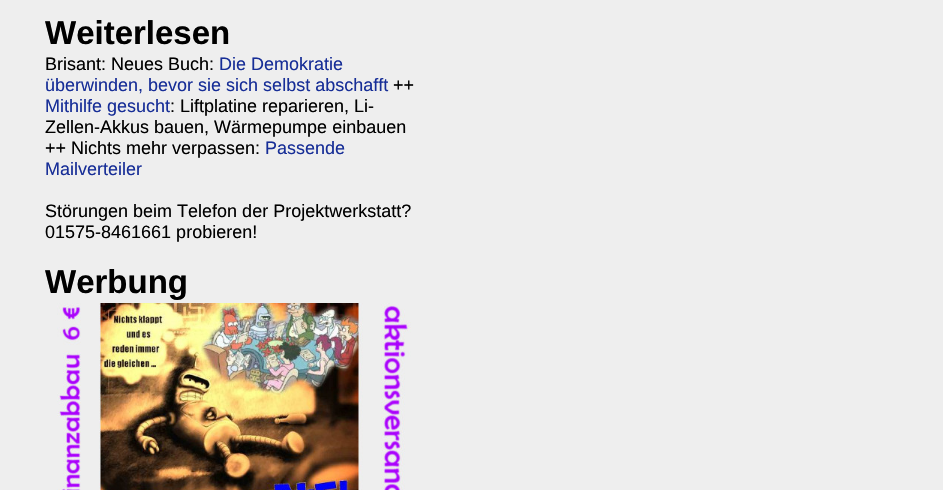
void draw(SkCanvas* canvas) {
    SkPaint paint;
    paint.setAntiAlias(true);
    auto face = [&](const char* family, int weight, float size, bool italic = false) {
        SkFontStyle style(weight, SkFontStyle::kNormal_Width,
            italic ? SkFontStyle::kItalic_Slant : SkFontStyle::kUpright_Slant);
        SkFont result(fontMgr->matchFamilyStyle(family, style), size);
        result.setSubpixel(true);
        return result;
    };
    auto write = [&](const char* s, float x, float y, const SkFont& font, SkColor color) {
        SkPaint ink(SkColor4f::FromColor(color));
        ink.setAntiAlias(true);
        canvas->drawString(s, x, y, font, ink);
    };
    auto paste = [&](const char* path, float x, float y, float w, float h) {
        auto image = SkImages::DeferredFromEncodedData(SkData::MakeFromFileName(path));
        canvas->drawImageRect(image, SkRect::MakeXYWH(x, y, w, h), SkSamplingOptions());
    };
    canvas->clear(SkColorSetRGB(238, 238, 238));
    auto kFont1 = face("Liberation Sans", 700, 33);
    write("Weiterlesen", 45, 44, kFont1, SK_ColorBLACK);
    auto kFont2 = face("Liberation Sans", 400, 18);
    write("Brisant: Neues Buch:", 45, 70, kFont2, SK_ColorBLACK);
    write("Die Demokratie", 219, 70, kFont2, SkColorSetRGB(23, 46, 151));
    write("überwinden, bevor sie sich selbst abschafft", 45, 91, kFont2, SkColorSetRGB(23, 46, 151));
    write("++", 393, 91, kFont2, SK_ColorBLACK);
    write("Mithilfe gesucht", 45, 112, kFont2, SkColorSetRGB(23, 46, 151));
    write(": Liftplatine reparieren, Li-", 170, 112, kFont2, SK_ColorBLACK);
    write("Zellen-Akkus bauen, Wärmepumpe einbauen", 45, 133, kFont2, SK_ColorBLACK);
    write("++ Nichts mehr verpassen:", 45, 154, kFont2, SK_ColorBLACK);
    write("Passende", 265, 154, kFont2, SkColorSetRGB(23, 46, 151));
    write("Mailverteiler", 45, 175, kFont2, SkColorSetRGB(23, 46, 151));
    write("Störungen beim Telefon der Projektwerkstatt?", 45, 217, kFont2, SK_ColorBLACK);
    write("01575-8461661 probieren!", 45, 238, kFont2, SK_ColorBLACK);
    write("Werbung", 45, 293, kFont1, SK_ColorBLACK);
    paste("pic1.png", 57, 303, 354, 187);
}
